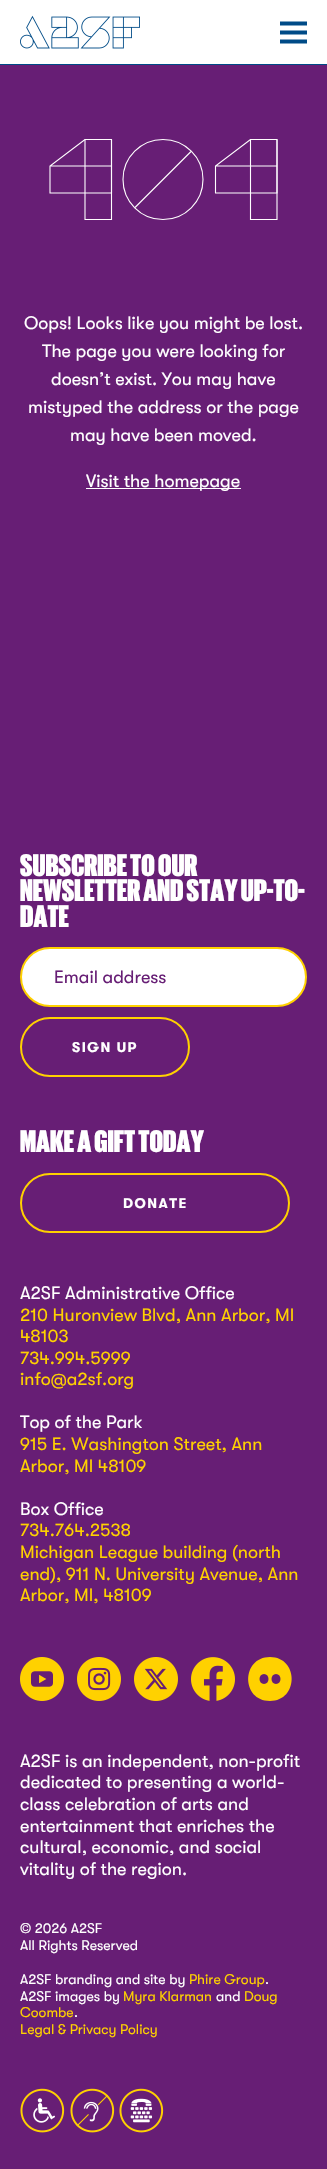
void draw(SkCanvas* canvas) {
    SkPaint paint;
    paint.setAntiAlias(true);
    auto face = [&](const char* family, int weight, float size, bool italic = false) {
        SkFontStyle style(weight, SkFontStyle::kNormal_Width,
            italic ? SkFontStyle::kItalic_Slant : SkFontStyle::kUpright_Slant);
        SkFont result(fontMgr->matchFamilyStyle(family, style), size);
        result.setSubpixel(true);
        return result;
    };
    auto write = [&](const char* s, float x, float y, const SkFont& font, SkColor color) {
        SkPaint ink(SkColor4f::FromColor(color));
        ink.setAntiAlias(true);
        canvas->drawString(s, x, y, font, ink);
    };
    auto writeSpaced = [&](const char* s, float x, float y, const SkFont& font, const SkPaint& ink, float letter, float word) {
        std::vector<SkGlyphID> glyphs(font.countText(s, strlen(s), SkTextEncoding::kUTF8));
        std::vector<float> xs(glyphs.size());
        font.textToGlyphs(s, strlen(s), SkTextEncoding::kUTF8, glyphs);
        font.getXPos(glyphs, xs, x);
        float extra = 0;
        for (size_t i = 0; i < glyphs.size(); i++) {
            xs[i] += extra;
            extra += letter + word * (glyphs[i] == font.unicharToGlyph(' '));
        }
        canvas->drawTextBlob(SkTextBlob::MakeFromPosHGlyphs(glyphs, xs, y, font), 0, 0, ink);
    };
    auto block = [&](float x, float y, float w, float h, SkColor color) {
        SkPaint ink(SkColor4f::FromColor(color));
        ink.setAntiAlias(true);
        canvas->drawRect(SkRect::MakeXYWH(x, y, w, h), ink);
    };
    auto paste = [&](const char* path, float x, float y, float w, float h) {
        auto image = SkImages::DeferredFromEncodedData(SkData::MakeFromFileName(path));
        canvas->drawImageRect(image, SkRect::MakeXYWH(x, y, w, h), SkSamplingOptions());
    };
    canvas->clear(SkColorSetRGB(103, 30, 117));
    block(0, 0, 327, 64, SK_ColorWHITE);
    block(0, 64, 327, 1, SkColorSetRGB(0, 75, 135));
    paste("pic1.png", 20, 15, 120, 34);
    paste("pic2.png", 280, 21, 27, 23);
    paint.setStyle(SkPaint::kStroke_Style);
    paint.setStrokeWidth(1.1f);
    paint.setColor(SK_ColorWHITE);
    canvas->drawCircle(163, 179.5f, 40, paint);
    canvas->save();
    canvas->clipRect(SkRect::MakeXYWH(49, 139, 229, 81));
    canvas->drawPath(SkPathBuilder().moveTo(191, 151.5f).lineTo(135, 207.5f).moveTo(277, 166).lineTo(215.5f, 166).moveTo(215.5f, 166).lineTo(215.5f, 193).lineTo(277, 193).lineTo(277, 139.5f).lineTo(250.5f, 139.5f).close().detach(), paint);
    canvas->drawPath(SkPathBuilder().moveTo(250.5f, 139.5f).lineTo(250.5f, 219.5f).lineTo(277, 219.5f).lineTo(277, 139.5f).moveTo(111.5f, 166).lineTo(50, 166).moveTo(50, 166).lineTo(50, 193).lineTo(111.5f, 193).lineTo(111.5f, 139.5f).lineTo(85, 139.5f).close().detach(), paint);
    canvas->restore();
    canvas->drawPath(SkPathBuilder().moveTo(85, 139.5f).lineTo(85, 219.5f).lineTo(111.5f, 219.5f).lineTo(111.5f, 139.5f).detach(), paint);
    auto kFont1 = face("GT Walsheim", 400, 18);
    write("Oops! Looks like you might be lost.", 24, 329, kFont1, SK_ColorWHITE);
    write("The page you were looking for", 42, 357, kFont1, SK_ColorWHITE);
    write("doesn’t exist. You may have", 51, 385, kFont1, SK_ColorWHITE);
    write("mistyped the address or the page", 28, 413, kFont1, SK_ColorWHITE);
    write("may have been moved.", 70, 441, kFont1, SK_ColorWHITE);
    block(86, 488, 155, 1, SK_ColorWHITE);
    write("Visit the homepage", 86, 487, kFont1, SK_ColorWHITE);
    auto kFont2 = face("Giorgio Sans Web", 800, 32);
    write("SUBSCRIBE TO OUR", 20, 876, kFont2, SK_ColorWHITE);
    write("NEWSLETTER AND STAY UP-TO-", 20, 901, kFont2, SK_ColorWHITE);
    write("DATE", 20, 927, kFont2, SK_ColorWHITE);
    paint.setStyle(SkPaint::kFill_Style);
    canvas->drawRoundRect(SkRect::MakeXYWH(21, 948, 285, 58), 29, 29, paint);
    paint.setStyle(SkPaint::kStroke_Style);
    paint.setStrokeWidth(2);
    paint.setColor(SkColorSetRGB(255, 209, 0));
    canvas->drawRoundRect(SkRect::MakeXYWH(21, 948, 285, 58), 29, 29, paint);
    write("Email address", 54, 983, kFont1, SkColorSetRGB(103, 30, 117));
    canvas->drawRoundRect(SkRect::MakeXYWH(21, 1018, 168, 58), 29, 29, paint);
    auto kFont3 = face("GT Walsheim", 700, 14);
    paint.setStyle(SkPaint::kFill_Style);
    paint.setColor(SK_ColorWHITE);
    writeSpaced("SIGN UP", 72, 1052, kFont3, paint, 1.5f, 0);
    write("MAKE A GIFT TODAY", 20, 1152, kFont2, SK_ColorWHITE);
    paint.setStyle(SkPaint::kStroke_Style);
    paint.setColor(SkColorSetRGB(255, 209, 0));
    canvas->drawRoundRect(SkRect::MakeXYWH(21, 1174, 268, 58), 29, 29, paint);
    paint.setStyle(SkPaint::kFill_Style);
    paint.setColor(SK_ColorWHITE);
    writeSpaced("DONATE", 123, 1208, kFont3, paint, 1.5f, 0);
    write("A2SF Administrative Office", 20, 1299, kFont1, SK_ColorWHITE);
    write("210 Huronview Blvd, Ann Arbor, MI", 20, 1321, kFont1, SkColorSetRGB(255, 209, 0));
    write("48103", 20, 1342, kFont1, SkColorSetRGB(255, 209, 0));
    write("734.994.5999", 20, 1364, kFont1, SkColorSetRGB(255, 209, 0));
    write("info@a2sf.org", 20, 1385, kFont1, SkColorSetRGB(255, 209, 0));
    write("Top of the Park", 20, 1428, kFont1, SK_ColorWHITE);
    write("915 E. Washington Street, Ann", 20, 1450, kFont1, SkColorSetRGB(255, 209, 0));
    write("Arbor, MI 48109", 20, 1472, kFont1, SkColorSetRGB(255, 209, 0));
    write("Box Office", 20, 1515, kFont1, SK_ColorWHITE);
    write("734.764.2538", 20, 1536, kFont1, SkColorSetRGB(255, 209, 0));
    write("Michigan League building (north", 20, 1558, kFont1, SkColorSetRGB(255, 209, 0));
    write("end), 911 N. University Avenue, Ann", 20, 1580, kFont1, SkColorSetRGB(255, 209, 0));
    write("Arbor, MI, 48109", 20, 1601, kFont1, SkColorSetRGB(255, 209, 0));
    paste("pic3.png", 20, 1657, 44, 44);
    paste("pic4.png", 77, 1657, 44, 44);
    paste("pic5.png", 134, 1657, 44, 44);
    paste("pic6.png", 191, 1657, 44, 44);
    paint.setColor(SkColorSetRGB(255, 209, 0));
    canvas->drawPath(SkPathBuilder().moveTo(270, 1657).cubicTo(241, 1657, 241, 1701, 270, 1701).cubicTo(299, 1701, 299, 1657, 270, 1657).close().moveTo(264, 1684).cubicTo(258, 1684, 258, 1674, 264, 1674).cubicTo(270, 1674, 270, 1684, 264, 1684).close().moveTo(276, 1684).cubicTo(270, 1684, 270, 1674, 276, 1674).cubicTo(282, 1674, 282, 1684, 276, 1684).close().detach(), paint);
    write("A2SF is an independent, non-profit", 20, 1767, kFont1, SK_ColorWHITE);
    write("dedicated to presenting a world-", 20, 1788, kFont1, SK_ColorWHITE);
    write("class celebration of arts and", 20, 1810, kFont1, SK_ColorWHITE);
    write("entertainment that enriches the", 20, 1832, kFont1, SK_ColorWHITE);
    write("cultural, economic, and social", 20, 1853, kFont1, SK_ColorWHITE);
    write("vitality of the region.", 20, 1875, kFont1, SK_ColorWHITE);
    auto kFont4 = face("GT Walsheim", 400, 14);
    write("© 2026 A2SF", 20, 1933, kFont4, SK_ColorWHITE);
    write("All Rights Reserved", 20, 1950, kFont4, SK_ColorWHITE);
    write("A2SF branding and site by", 20, 1984, kFont4, SK_ColorWHITE);
    write("Phire Group", 189, 1984, kFont4, SkColorSetRGB(255, 209, 0));
    write(".", 265, 1984, kFont4, SK_ColorWHITE);
    write("A2SF images by", 20, 2001, kFont4, SK_ColorWHITE);
    write("Myra Klarman", 123, 2001, kFont4, SkColorSetRGB(255, 209, 0));
    write("and", 216, 2001, kFont4, SK_ColorWHITE);
    write("Doug", 244, 2001, kFont4, SkColorSetRGB(255, 209, 0));
    write("Coombe", 20, 2017, kFont4, SkColorSetRGB(255, 209, 0));
    write(".", 74, 2017, kFont4, SK_ColorWHITE);
    write("Legal & Privacy Policy", 20, 2034, kFont4, SkColorSetRGB(255, 209, 0));
    paste("pic7.png", 20, 2088, 45, 45);
    paste("pic8.png", 70, 2088, 45, 45);
    paste("pic9.png", 119, 2088, 45, 45);
}
